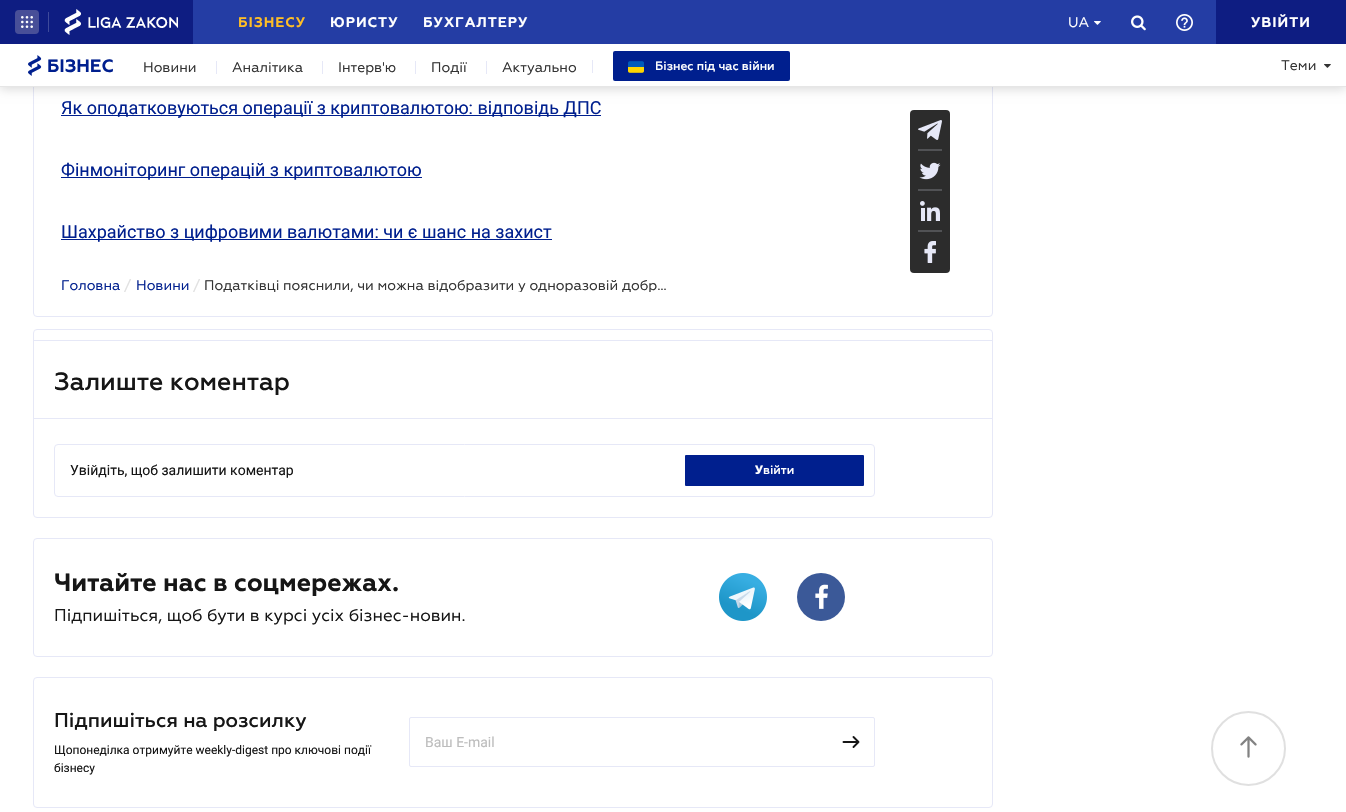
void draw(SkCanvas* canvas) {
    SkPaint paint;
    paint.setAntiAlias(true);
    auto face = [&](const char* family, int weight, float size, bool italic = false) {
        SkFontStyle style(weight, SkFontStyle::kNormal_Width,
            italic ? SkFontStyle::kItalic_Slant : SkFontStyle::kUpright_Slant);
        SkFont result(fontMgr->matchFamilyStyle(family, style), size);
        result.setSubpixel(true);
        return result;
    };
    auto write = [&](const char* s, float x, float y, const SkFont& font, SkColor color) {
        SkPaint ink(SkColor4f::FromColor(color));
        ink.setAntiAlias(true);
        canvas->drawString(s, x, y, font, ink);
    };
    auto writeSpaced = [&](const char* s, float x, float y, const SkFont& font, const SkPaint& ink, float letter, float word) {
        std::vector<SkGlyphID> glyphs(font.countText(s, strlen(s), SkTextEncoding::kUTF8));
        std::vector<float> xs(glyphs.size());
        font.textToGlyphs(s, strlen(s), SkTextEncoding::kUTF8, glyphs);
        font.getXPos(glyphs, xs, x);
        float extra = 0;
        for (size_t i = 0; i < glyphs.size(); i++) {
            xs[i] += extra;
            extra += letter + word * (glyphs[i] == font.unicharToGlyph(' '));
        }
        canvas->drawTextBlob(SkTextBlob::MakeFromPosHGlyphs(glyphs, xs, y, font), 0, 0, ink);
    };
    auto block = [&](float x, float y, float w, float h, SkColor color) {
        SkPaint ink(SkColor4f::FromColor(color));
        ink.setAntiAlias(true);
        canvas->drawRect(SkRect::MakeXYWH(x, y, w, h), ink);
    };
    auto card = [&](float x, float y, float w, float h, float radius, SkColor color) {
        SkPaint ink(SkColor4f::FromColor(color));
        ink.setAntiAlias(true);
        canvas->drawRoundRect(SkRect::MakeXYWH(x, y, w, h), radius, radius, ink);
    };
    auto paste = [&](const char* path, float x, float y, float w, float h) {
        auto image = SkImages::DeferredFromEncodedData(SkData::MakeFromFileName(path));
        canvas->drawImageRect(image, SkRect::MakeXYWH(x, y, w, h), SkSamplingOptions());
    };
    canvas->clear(SK_ColorWHITE);
    paint.setStyle(SkPaint::kStroke_Style);
    paint.setStrokeWidth(1);
    paint.setColor(SkColorSetRGB(230, 232, 247));
    canvas->drawRoundRect(SkRect::MakeXYWH(33.5f, -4.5f, 959, 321), 3.5f, 3.5f, paint);
    paint.setStyle(SkPaint::kFill_Style);
    paint.setColor(SkColorSetARGB(38, 0, 0, 0));
    paint.setMaskFilter(SkMaskFilter::MakeBlur(kNormal_SkBlurStyle, 5));
    canvas->drawRect(SkRect::MakeXYWH(0, 46, 1346, 43), paint);
    paint.setMaskFilter(nullptr);
    block(193, 0, 1023, 44, SkColorSetRGB(36, 61, 164));
    block(0, 0, 193, 44, SkColorSetRGB(14, 29, 130));
    card(15, 10, 24, 24, 4, SkColorSetRGB(72, 79, 152));
    paste("pic1.png", 21, 16, 12, 12);
    block(48, 12, 1, 20, SkColorSetRGB(62, 74, 155));
    paste("pic2.png", 64, 9, 114, 26);
    auto kFont1 = face("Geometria", 700, 14);
    paint.setColor(SkColorSetRGB(255, 190, 38));
    writeSpaced("БІЗНЕСУ", 238, 27, kFont1, paint, 1, 0);
    paint.setColor(SK_ColorWHITE);
    writeSpaced("ЮРИСТУ", 330, 27, kFont1, paint, 1, 0);
    writeSpaced("БУХГАЛТЕРУ", 423, 27, kFont1, paint, 1, 0);
    auto kFont2 = face("Geometria", 400, 14);
    write("UA", 1068, 27, kFont2, SK_ColorWHITE);
    paste("pic3.png", 1094, 21, 7, 4);
    paste("pic4.png", 1131, 15, 15, 16);
    paste("pic5.png", 1176, 14, 17, 17);
    block(1216, 0, 130, 44, SkColorSetRGB(14, 29, 130));
    writeSpaced("УВІЙТИ", 1251, 27, kFont1, paint, 1, 0);
    block(0, 44, 1346, 42, SK_ColorWHITE);
    block(0, 86, 1346, 1, SkColorSetRGB(230, 230, 230));
    paste("pic6.png", 28, 55, 14, 21);
    auto kFont3 = face("Geometria", 700, 18);
    write("БІЗНЕС", 47, 72, kFont3, SkColorSetRGB(0, 31, 142));
    write("Новини", 143, 72, kFont2, SkColorSetRGB(51, 51, 51));
    block(216, 61, 1, 13, SkColorSetRGB(230, 232, 247));
    write("Аналітика", 232, 72, kFont2, SkColorSetRGB(51, 51, 51));
    block(322, 61, 1, 13, SkColorSetRGB(230, 232, 247));
    write("Інтерв'ю", 338, 72, kFont2, SkColorSetRGB(51, 51, 51));
    block(415, 61, 1, 13, SkColorSetRGB(230, 232, 247));
    write("Події", 431, 72, kFont2, SkColorSetRGB(51, 51, 51));
    block(486, 61, 1, 13, SkColorSetRGB(230, 232, 247));
    write("Актуально", 502, 72, kFont2, SkColorSetRGB(51, 51, 51));
    card(613, 51, 177, 30, 2, SkColorSetRGB(0, 31, 142));
    block(592, 60, 1, 13, SkColorSetRGB(230, 232, 247));
    paste("pic7.png", 628, 61, 16, 12);
    auto kFont4 = face("Geometria", 500, 12);
    write("Бізнес під час війни", 655, 70, kFont4, SK_ColorWHITE);
    write("Теми", 1281, 70, kFont2, SkColorSetRGB(51, 51, 51));
    paste("pic8.png", 1324, 64, 7, 4);
    block(61, 115, 540, 1, SkColorSetRGB(0, 31, 142));
    auto kFont5 = face("Roboto", 400, 18);
    write("Як оподатковуються операції з криптовалютою: відповідь ДПС", 61, 114, kFont5, SkColorSetRGB(0, 31, 142));
    block(61, 177, 361, 1, SkColorSetRGB(0, 31, 142));
    write("Фінмоніторинг операцій з криптовалютою", 61, 176, kFont5, SkColorSetRGB(0, 31, 142));
    block(61, 239, 491, 1, SkColorSetRGB(0, 31, 142));
    write("Шахрайство з цифровими валютами: чи є шанс на захист", 61, 238, kFont5, SkColorSetRGB(0, 31, 142));
    write("Головна", 61, 290, kFont2, SkColorSetRGB(0, 31, 142));
    write("/", 124, 290, kFont2, SkColorSetRGB(224, 224, 224));
    write("Новини", 136, 290, kFont2, SkColorSetRGB(0, 31, 142));
    write("/", 193, 290, kFont2, SkColorSetRGB(224, 224, 224));
    canvas->save();
    canvas->clipRect(SkRect::MakeXYWH(204, 278, 470, 14));
    write("Податківці пояснили, чи можна відобразити у одноразовій добр…", 204, 290, kFont2, SkColorSetRGB(51, 51, 51));
    canvas->restore();
    card(910, 110, 40, 163, 4, SkColorSetRGB(44, 44, 44));
    paste("pic9.png", 918, 120, 24, 20);
    block(918, 149, 24, 2, SkColorSetRGB(81, 82, 85));
    paste("pic10.png", 919, 162, 22, 18);
    block(918, 189, 24, 2, SkColorSetRGB(81, 82, 85));
    paste("pic11.png", 920, 201, 20, 20);
    block(918, 230, 24, 2, SkColorSetRGB(81, 82, 85));
    paste("pic12.png", 924, 241, 12, 22);
    paint.setStyle(SkPaint::kStroke_Style);
    paint.setColor(SkColorSetRGB(230, 232, 247));
    canvas->drawRoundRect(SkRect::MakeXYWH(33.5f, 329.5f, 959, 188), 3.5f, 3.5f, paint);
    block(34, 340, 958, 1, SkColorSetRGB(230, 232, 247));
    block(34, 418, 958, 1, SkColorSetRGB(230, 232, 247));
    auto kFont6 = face("Geometria", 500, 25);
    write("Залиште коментар", 54, 390, kFont6, SkColorSetRGB(22, 22, 22));
    canvas->drawRoundRect(SkRect::MakeXYWH(54.5f, 444.5f, 820, 52), 3.5f, 3.5f, paint);
    auto kFont7 = face("Roboto", 400, 14);
    write("Увійдіть, щоб залишити коментар", 70, 475, kFont7, SkColorSetRGB(22, 22, 22));
    card(685, 455, 179, 31, 1, SkColorSetRGB(0, 31, 142));
    auto kFont8 = face("Noto Sans", 800, 12);
    write("У", 755, 474, kFont8, SK_ColorWHITE);
    write("війти", 763, 474, kFont4, SK_ColorWHITE);
    canvas->drawRoundRect(SkRect::MakeXYWH(33.5f, 538.5f, 959, 118), 3.5f, 3.5f, paint);
    auto kFont9 = face("Geometria", 700, 25);
    write("Читайте нас в соцмережах.", 54, 591, kFont9, SkColorSetRGB(22, 22, 22));
    auto kFont10 = face("Geometria", 400, 17);
    write("Підпишіться, щоб бути в курсі усіх бізнес-новин.", 54, 621, kFont10, SkColorSetRGB(22, 22, 22));
    paste("pic13.png", 719, 573, 48, 48);
    paint.setStyle(SkPaint::kFill_Style);
    paint.setColor(SkColorSetRGB(59, 89, 152));
    canvas->drawCircle(821, 597, 24, paint);
    paste("pic14.png", 815, 584, 13, 25);
    paint.setStyle(SkPaint::kStroke_Style);
    paint.setColor(SkColorSetRGB(230, 232, 247));
    canvas->drawRoundRect(SkRect::MakeXYWH(33.5f, 677.5f, 959, 130), 3.5f, 3.5f, paint);
    auto kFont11 = face("Geometria", 500, 20);
    write("Підпишіться на розсилку", 54, 727, kFont11, SkColorSetRGB(22, 22, 22));
    auto kFont12 = face("Roboto", 400, 12);
    write("Щопонеділка отримуйте weekly-digest про ключові події", 54, 754, kFont12, SkColorSetRGB(22, 22, 22));
    write("бізнесу", 54, 772, kFont12, SkColorSetRGB(22, 22, 22));
    canvas->drawRoundRect(SkRect::MakeXYWH(409.5f, 717.5f, 465, 49), 1.5f, 1.5f, paint);
    write("Ваш E-mail", 425, 747, kFont7, SkColorSetRGB(189, 189, 189));
    paint.setStrokeWidth(1.9f);
    paint.setStrokeCap(SkPaint::kRound_Cap);
    paint.setStrokeJoin(SkPaint::kRound_Join);
    paint.setColor(SkColorSetRGB(22, 22, 22));
    canvas->drawPath(SkPathBuilder().moveTo(858.5f, 742).lineTo(843.5f, 742).moveTo(858.5f, 742).lineTo(853.5f, 737).moveTo(858.5f, 742).lineTo(853.5f, 747).detach(), paint);
    paint.setStrokeWidth(2);
    paint.setStrokeCap(SkPaint::kButt_Cap);
    paint.setStrokeJoin(SkPaint::kMiter_Join);
    paint.setColor(SkColorSetRGB(224, 224, 224));
    canvas->drawCircle(1248.5f, 748.5f, 36.5f, paint);
    paste("pic15.png", 1240, 736, 17, 22);
}
